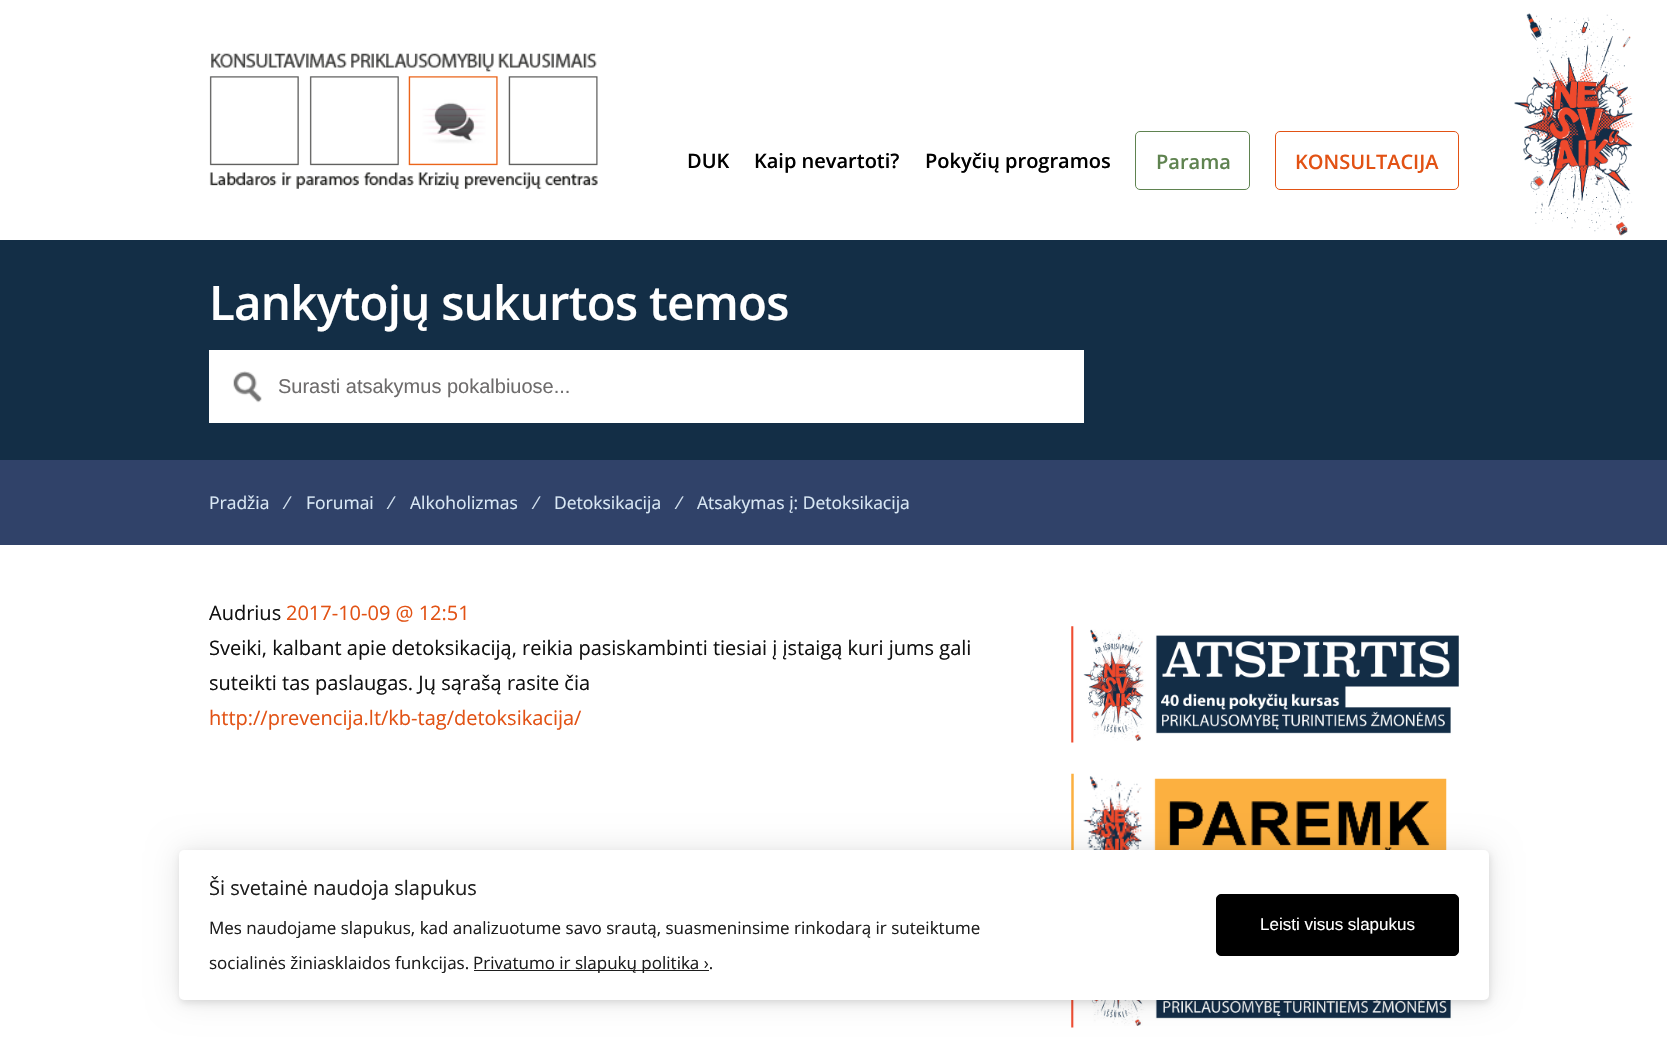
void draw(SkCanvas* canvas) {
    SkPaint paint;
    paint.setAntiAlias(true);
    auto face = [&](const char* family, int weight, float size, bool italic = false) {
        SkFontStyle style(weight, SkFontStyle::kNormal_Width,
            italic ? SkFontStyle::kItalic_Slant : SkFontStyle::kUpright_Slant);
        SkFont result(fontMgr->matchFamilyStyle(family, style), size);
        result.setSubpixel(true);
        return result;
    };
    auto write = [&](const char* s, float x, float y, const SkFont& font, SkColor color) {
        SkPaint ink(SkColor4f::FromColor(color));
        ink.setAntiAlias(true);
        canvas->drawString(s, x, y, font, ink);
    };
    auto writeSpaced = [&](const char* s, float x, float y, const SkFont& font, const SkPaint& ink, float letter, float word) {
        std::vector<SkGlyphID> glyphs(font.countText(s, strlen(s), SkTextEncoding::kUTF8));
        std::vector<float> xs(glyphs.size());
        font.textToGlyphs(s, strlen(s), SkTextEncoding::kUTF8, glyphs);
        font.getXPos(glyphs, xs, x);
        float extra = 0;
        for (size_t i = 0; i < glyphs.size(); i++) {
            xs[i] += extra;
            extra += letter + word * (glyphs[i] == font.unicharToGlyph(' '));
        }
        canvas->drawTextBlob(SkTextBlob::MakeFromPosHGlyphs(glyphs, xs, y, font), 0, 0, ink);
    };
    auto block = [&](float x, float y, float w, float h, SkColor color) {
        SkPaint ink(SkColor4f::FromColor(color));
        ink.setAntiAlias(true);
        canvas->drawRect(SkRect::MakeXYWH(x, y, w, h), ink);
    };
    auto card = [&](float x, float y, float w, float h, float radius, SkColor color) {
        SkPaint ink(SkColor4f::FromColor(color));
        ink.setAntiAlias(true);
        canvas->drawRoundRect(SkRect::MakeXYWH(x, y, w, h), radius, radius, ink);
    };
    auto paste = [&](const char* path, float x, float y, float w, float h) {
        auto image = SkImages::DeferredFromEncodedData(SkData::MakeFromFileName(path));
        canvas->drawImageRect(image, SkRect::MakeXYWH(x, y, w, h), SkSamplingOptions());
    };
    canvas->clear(SK_ColorWHITE);
    paste("pic1.png", 1514, 13, 120, 223);
    paste("pic2.png", 209, 53, 389, 136);
    auto kFont1 = face("Open Sans", 600, 20);
    write("DUK", 687, 168, kFont1, SK_ColorBLACK);
    write("Kaip nevartoti?", 754, 168, kFont1, SK_ColorBLACK);
    write("Pokyčių programos", 925, 168, kFont1, SK_ColorBLACK);
    paint.setStyle(SkPaint::kStroke_Style);
    paint.setStrokeWidth(1);
    paint.setColor(SkColorSetRGB(95, 131, 80));
    canvas->drawRoundRect(SkRect::MakeXYWH(1135.5f, 131.5f, 114, 58), 4.5f, 4.5f, paint);
    write("Parama", 1156, 169, kFont1, SkColorSetRGB(95, 131, 80));
    paint.setColor(SkColorSetRGB(226, 82, 20));
    canvas->drawRoundRect(SkRect::MakeXYWH(1275.5f, 131.5f, 183, 58), 4.5f, 4.5f, paint);
    write("KONSULTACIJA", 1295, 169, kFont1, SkColorSetRGB(226, 82, 20));
    block(0, 240, 1667, 220, SkColorSetRGB(19, 46, 70));
    auto kFont2 = face("Open Sans", 600, 47.5f);
    paint.setStyle(SkPaint::kFill_Style);
    paint.setColor(SK_ColorWHITE);
    writeSpaced("Lankytojų sukurtos temos", 209, 320, kFont2, paint, -0.75f, 0);
    block(209, 350, 875, 73, SK_ColorWHITE);
    paste("pic3.png", 233, 371, 29, 32);
    auto kFont3 = face("Liberation Sans", 400, 20);
    write("Surasti atsakymus pokalbiuose...", 278, 393, kFont3, SkColorSetRGB(110, 108, 108));
    block(0, 460, 1667, 85, SkColorSetRGB(48, 66, 105));
    auto kFont4 = face("Open Sans", 400, 17.5f);
    write("Pradžia", 209, 509, kFont4, SkColorSetRGB(217, 232, 245));
    write("⁄", 286, 509, kFont4, SkColorSetRGB(217, 232, 245));
    write("Forumai", 306, 509, kFont4, SkColorSetRGB(217, 232, 245));
    write("⁄", 390, 509, kFont4, SkColorSetRGB(217, 232, 245));
    write("Alkoholizmas", 410, 509, kFont4, SkColorSetRGB(217, 232, 245));
    write("⁄", 535, 509, kFont4, SkColorSetRGB(217, 232, 245));
    write("Detoksikacija", 554, 509, kFont4, SkColorSetRGB(217, 232, 245));
    write("⁄", 678, 509, kFont4, SkColorSetRGB(217, 232, 245));
    write("Atsakymas į: Detoksikacija", 697, 509, kFont4, SkColorSetRGB(217, 232, 245));
    auto kFont5 = face("Open Sans", 400, 20);
    write("Audrius", 209, 620, kFont5, SkColorSetRGB(17, 17, 17));
    write("2017-10-09 @ 12:51", 286, 620, kFont5, SkColorSetRGB(226, 82, 20));
    write("Sveiki, kalbant apie detoksikaciją, reikia pasiskambinti tiesiai į įstaigą kuri jums gali", 209, 655, kFont5, SkColorSetRGB(17, 17, 17));
    write("suteikti tas paslaugas. Jų sąrašą rasite čia", 209, 690, kFont5, SkColorSetRGB(17, 17, 17));
    write("http://prevencija.lt/kb-tag/detoksikacija/", 209, 725, kFont5, SkColorSetRGB(226, 82, 20));
    paste("pic4.png", 1071, 626, 388, 117);
    paste("pic5.png", 1071, 773, 376, 77);
    paste("pic6.png", 1071, 1000, 388, 28);
    paint.setColor(SkColorSetARGB(26, 0, 0, 0));
    paint.setMaskFilter(SkMaskFilter::MakeBlur(kNormal_SkBlurStyle, 3));
    canvas->drawRoundRect(SkRect::MakeXYWH(180, 853, 1310, 150), 5, 5, paint);
    paint.setMaskFilter(nullptr);
    paint.setMaskFilter(SkMaskFilter::MakeBlur(kNormal_SkBlurStyle, 15.5f));
    canvas->drawRoundRect(SkRect::MakeXYWH(179, 850, 1310, 150), 5, 5, paint);
    paint.setMaskFilter(nullptr);
    card(179, 850, 1310, 150, 5, SK_ColorWHITE);
    write("Ši svetainė naudoja slapukus", 209, 895, kFont5, SkColorSetRGB(30, 30, 30));
    auto kFont6 = face("Open Sans", 400, 17);
    write("Mes naudojame slapukus, kad analizuotume savo srautą, suasmeninsime rinkodarą ir suteiktume", 209, 934, kFont6, SkColorSetRGB(30, 30, 30));
    write("socialinės žiniasklaidos funkcijas.", 209, 969, kFont6, SkColorSetRGB(30, 30, 30));
    block(474, 970, 235, 1, SkColorSetRGB(30, 30, 30));
    write("Privatumo ir slapukų politika ›.", 473, 969, kFont6, SkColorSetRGB(30, 30, 30));
    paint.setColor(SK_ColorBLACK);
    canvas->drawRoundRect(SkRect::MakeXYWH(1216.5f, 894.5f, 242, 61), 4.5f, 4.5f, paint);
    paint.setStyle(SkPaint::kStroke_Style);
    canvas->drawRoundRect(SkRect::MakeXYWH(1216.5f, 894.5f, 242, 61), 4.5f, 4.5f, paint);
    auto kFont7 = face("Liberation Sans", 400, 17);
    write("Leisti visus slapukus", 1260, 930, kFont7, SK_ColorWHITE);
}
